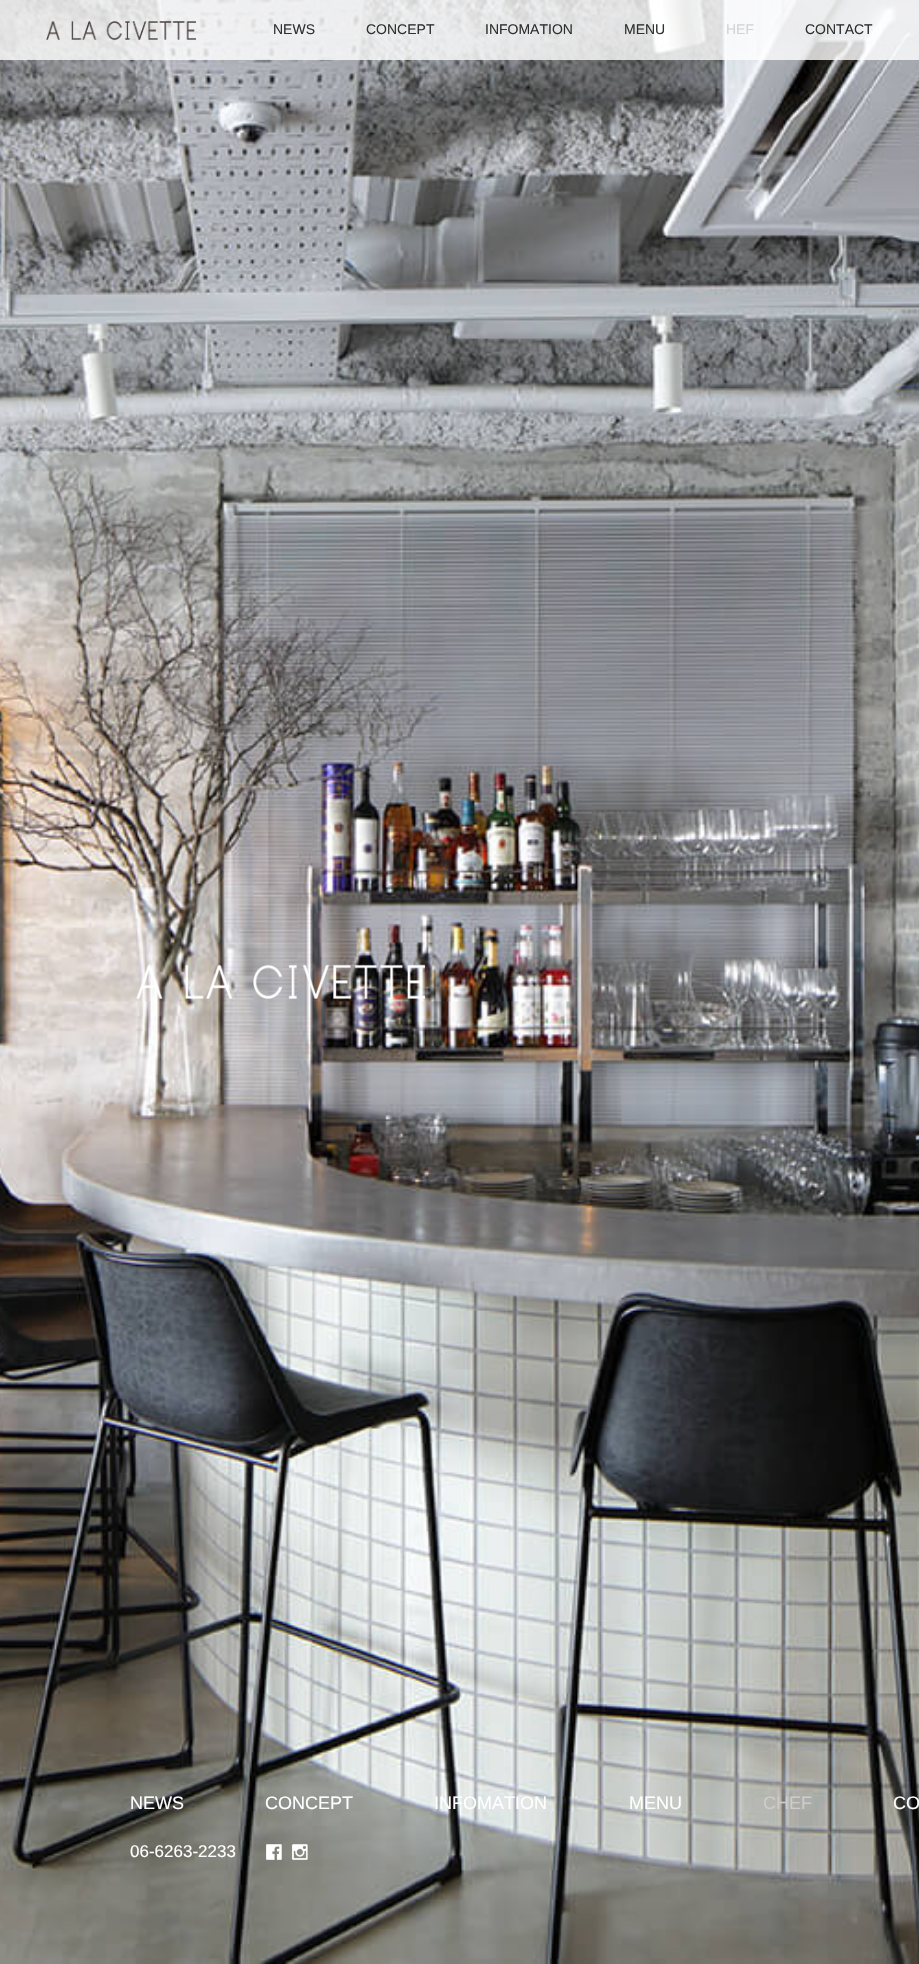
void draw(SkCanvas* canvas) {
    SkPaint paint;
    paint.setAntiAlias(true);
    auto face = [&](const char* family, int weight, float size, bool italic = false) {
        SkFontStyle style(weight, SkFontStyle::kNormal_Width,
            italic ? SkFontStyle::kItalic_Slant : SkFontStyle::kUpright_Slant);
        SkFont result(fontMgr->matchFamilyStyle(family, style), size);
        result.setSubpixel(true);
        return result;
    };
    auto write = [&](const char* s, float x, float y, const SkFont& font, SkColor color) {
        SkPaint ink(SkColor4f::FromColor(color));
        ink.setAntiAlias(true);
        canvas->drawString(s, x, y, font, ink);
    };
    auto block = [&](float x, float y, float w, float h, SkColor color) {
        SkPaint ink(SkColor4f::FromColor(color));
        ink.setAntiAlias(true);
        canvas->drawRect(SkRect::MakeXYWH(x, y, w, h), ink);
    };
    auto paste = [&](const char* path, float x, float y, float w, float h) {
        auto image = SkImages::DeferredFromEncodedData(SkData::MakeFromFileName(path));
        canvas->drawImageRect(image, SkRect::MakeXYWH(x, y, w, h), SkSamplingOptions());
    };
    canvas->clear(SK_ColorWHITE);
    paste("pic2.png", 0, 0, 919, 1964);
    block(0, 0, 919, 60, SkColorSetARGB(204, 255, 255, 255));
    paste("pic1.png", 46, 21, 150, 19);
    auto kFont1 = face("Liberation Sans", 400, 14);
    write("NEWS", 273, 34, kFont1, SkColorSetRGB(47, 48, 48));
    write("CONCEPT", 366, 34, kFont1, SkColorSetRGB(47, 48, 48));
    write("INFOMATION", 485, 34, kFont1, SkColorSetRGB(47, 48, 48));
    write("MENU", 624, 34, kFont1, SkColorSetRGB(47, 48, 48));
    write("HEF", 726, 34, kFont1, SkColorSetRGB(212, 212, 212));
    write("CONTACT", 805, 34, kFont1, SkColorSetRGB(47, 48, 48));
    paste("pic3.png", 136, 964, 289, 35);
    auto kFont2 = face("Liberation Sans", 400, 18);
    write("NEWS", 130, 1809, kFont2, SK_ColorWHITE);
    write("CONCEPT", 265, 1809, kFont2, SK_ColorWHITE);
    write("INFOMATION", 434, 1809, kFont2, SK_ColorWHITE);
    write("MENU", 629, 1809, kFont2, SK_ColorWHITE);
    write("CHEF", 763, 1809, kFont2, SkColorSetRGB(204, 204, 204));
    write("CO", 893, 1809, kFont2, SK_ColorWHITE);
    auto kFont3 = face("Liberation Sans", 400, 17);
    write("06-6263-2233", 130, 1857, kFont3, SK_ColorWHITE);
    paste("pic4.png", 266, 1844, 16, 16);
    paste("pic5.png", 292, 1844, 16, 16);
}
